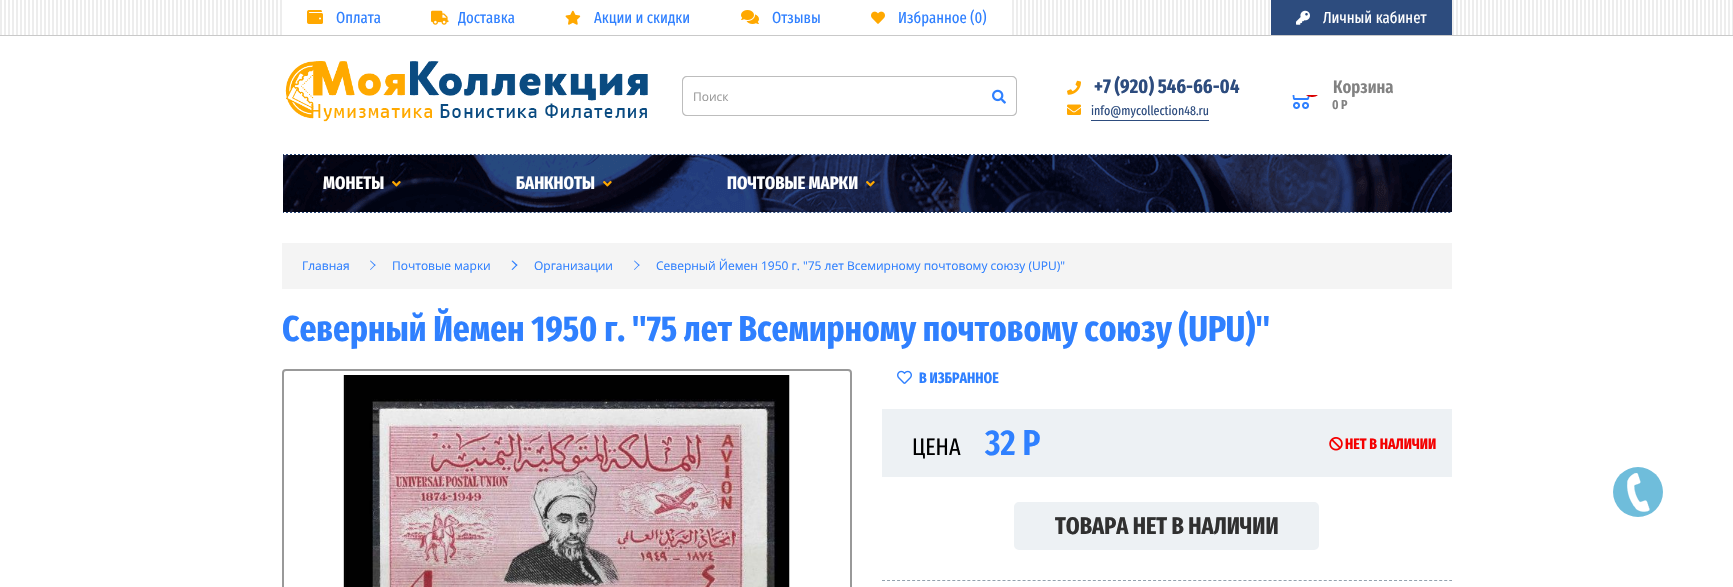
void draw(SkCanvas* canvas) {
    SkPaint paint;
    paint.setAntiAlias(true);
    auto face = [&](const char* family, int weight, float size, bool italic = false) {
        SkFontStyle style(weight, SkFontStyle::kNormal_Width,
            italic ? SkFontStyle::kItalic_Slant : SkFontStyle::kUpright_Slant);
        SkFont result(fontMgr->matchFamilyStyle(family, style), size);
        result.setSubpixel(true);
        return result;
    };
    auto write = [&](const char* s, float x, float y, const SkFont& font, SkColor color) {
        SkPaint ink(SkColor4f::FromColor(color));
        ink.setAntiAlias(true);
        canvas->drawString(s, x, y, font, ink);
    };
    auto block = [&](float x, float y, float w, float h, SkColor color) {
        SkPaint ink(SkColor4f::FromColor(color));
        ink.setAntiAlias(true);
        canvas->drawRect(SkRect::MakeXYWH(x, y, w, h), ink);
    };
    auto paste = [&](const char* path, float x, float y, float w, float h) {
        auto image = SkImages::DeferredFromEncodedData(SkData::MakeFromFileName(path));
        canvas->drawImageRect(image, SkRect::MakeXYWH(x, y, w, h), SkSamplingOptions());
    };
    canvas->clear(SK_ColorWHITE);
    paste("pic1.png", 0, 0, 1733, 35);
    block(0, 35, 1733, 1, SkColorSetRGB(201, 201, 201));
    block(284, 0, 122, 35, SK_ColorWHITE);
    paste("pic2.png", 307, 10, 16, 14);
    auto kFont1 = face("Fira Sans Extra Condensed", 400, 16);
    write("Оплата", 336, 23, kFont1, SkColorSetRGB(47, 128, 255));
    block(408, 0, 130, 35, SK_ColorWHITE);
    paste("pic3.png", 431, 10, 18, 15);
    write("Доставка", 458, 23, kFont1, SkColorSetRGB(47, 128, 255));
    block(540, 0, 174, 35, SK_ColorWHITE);
    paste("pic4.png", 565, 10, 16, 15);
    write("Акции и скидки", 594, 23, kFont1, SkColorSetRGB(47, 128, 255));
    block(716, 0, 130, 35, SK_ColorWHITE);
    paste("pic5.png", 741, 10, 18, 14);
    write("Отзывы", 772, 23, kFont1, SkColorSetRGB(47, 128, 255));
    block(848, 0, 162, 35, SK_ColorWHITE);
    paste("pic6.png", 871, 11, 14, 13);
    write("Избранное (0)", 898, 23, kFont1, SkColorSetRGB(47, 128, 255));
    block(1271, 0, 181, 35, SkColorSetRGB(45, 76, 126));
    paste("pic7.png", 1296, 10, 14, 15);
    write("Личный кабинет", 1323, 23, kFont1, SK_ColorWHITE);
    paste("pic8.png", 285, 61, 363, 61);
    paint.setColor(SkColorSetRGB(189, 189, 189));
    canvas->drawPath(SkPathBuilder(SkPathFillType::kEvenOdd).moveTo(687, 76).lineTo(982, 76).lineTo(982, 116).lineTo(687, 116).cubicTo(684, 116, 682, 114, 682, 111).lineTo(682, 81).cubicTo(682, 78, 684, 76, 687, 76).close().moveTo(687, 77).lineTo(982, 77).lineTo(982, 115).lineTo(687, 115).cubicTo(685, 115, 683, 113, 683, 111).lineTo(683, 81).cubicTo(683, 79, 685, 77, 687, 77).close().detach(), paint);
    auto kFont2 = face("Open Sans", 400, 12);
    write("Поиск", 693, 101, kFont2, SkColorSetRGB(153, 153, 153));
    canvas->drawPath(SkPathBuilder(SkPathFillType::kEvenOdd).moveTo(982, 76).lineTo(1012, 76).cubicTo(1015, 76, 1017, 78, 1017, 81).lineTo(1017, 111).cubicTo(1017, 114, 1015, 116, 1012, 116).lineTo(982, 116).close().moveTo(982, 77).lineTo(1012, 77).cubicTo(1014, 77, 1016, 79, 1016, 81).lineTo(1016, 111).cubicTo(1016, 113, 1014, 115, 1012, 115).lineTo(982, 115).close().detach(), paint);
    paste("pic9.png", 992, 89, 14, 15);
    paste("pic10.png", 1067, 80, 14, 15);
    auto kFont3 = face("Fira Sans Extra Condensed", 700, 20);
    write("+7 (920) 546-66-04", 1094, 93, kFont3, SkColorSetRGB(45, 76, 126));
    paste("pic11.png", 1067, 104, 14, 11);
    auto kFont4 = face("Fira Sans Extra Condensed", 400, 13);
    write("info@mycollection48.ru", 1091, 115, kFont4, SkColorSetRGB(45, 76, 126));
    block(1091, 120, 118, 1, SkColorSetRGB(45, 76, 126));
    auto kFont5 = face("Fira Sans Extra Condensed", 600, 18);
    write("Корзина", 1333, 93, kFont5, SkColorSetRGB(130, 130, 130));
    paste("pic12.png", 1292, 95, 26, 14);
    auto kFont6 = face("Fira Sans Extra Condensed", 600, 13);
    write("0 Р", 1332, 109, kFont6, SkColorSetRGB(130, 130, 130));
    paste("pic13.png", 283, 154, 1169, 59);
    auto kFont7 = face("Fira Sans Extra Condensed", 700, 18);
    write("МОНЕТЫ", 323, 189, kFont7, SK_ColorWHITE);
    paste("pic14.png", 392, 181, 9, 6);
    write("БАНКНОТЫ", 516, 189, kFont7, SK_ColorWHITE);
    paste("pic15.png", 603, 181, 9, 6);
    write("ПОЧТОВЫЕ МАРКИ", 727, 189, kFont7, SK_ColorWHITE);
    paste("pic16.png", 866, 181, 9, 6);
    block(282, 243, 1170, 46, SkColorSetRGB(244, 244, 244));
    write("Главная", 302, 270, kFont2, SkColorSetRGB(47, 128, 255));
    paint.setColor(SkColorSetRGB(47, 128, 255));
    canvas->drawPath(SkPathBuilder().moveTo(370, 261).lineTo(370.5f, 260.5f).lineTo(375.5f, 265).lineTo(375, 266).close().detach(), paint);
    canvas->drawPath(SkPathBuilder().moveTo(370, 269.5f).lineTo(375, 264.5f).lineTo(375.5f, 265).lineTo(370.5f, 270).close().detach(), paint);
    write("Почтовые марки", 392, 270, kFont2, SkColorSetRGB(47, 128, 255));
    canvas->drawPath(SkPathBuilder().moveTo(511.5f, 261).lineTo(512.5f, 260.5f).lineTo(517.5f, 265).lineTo(516.5f, 266).close().detach(), paint);
    canvas->drawPath(SkPathBuilder().moveTo(511.5f, 269.5f).lineTo(516.5f, 264.5f).lineTo(517.5f, 265).lineTo(512.5f, 270).close().detach(), paint);
    write("Организации", 534, 270, kFont2, SkColorSetRGB(47, 128, 255));
    canvas->drawPath(SkPathBuilder().moveTo(634, 261).lineTo(634.5f, 260.5f).lineTo(639.5f, 265).lineTo(639, 266).close().detach(), paint);
    canvas->drawPath(SkPathBuilder().moveTo(634, 269.5f).lineTo(639, 264.5f).lineTo(639.5f, 265).lineTo(634.5f, 270).close().detach(), paint);
    write("Северный Йемен 1950 г. \"75 лет Всемирному почтовому союзу (UPU)\"", 656, 270, kFont2, SkColorSetRGB(47, 128, 255));
    auto kFont8 = face("Fira Sans Extra Condensed", 700, 36);
    write("Северный Йемен 1950 г. \"75 лет Всемирному почтовому союзу (UPU)\"", 282, 341, kFont8, SkColorSetRGB(47, 128, 255));
    paint.setStyle(SkPaint::kStroke_Style);
    paint.setStrokeWidth(2);
    paint.setColor(SkColorSetRGB(153, 153, 153));
    canvas->drawRoundRect(SkRect::MakeXYWH(283, 370, 568, 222), 3, 3, paint);
    paste("pic17.png", 343, 375, 447, 212);
    paste("pic18.png", 897, 370, 15, 14);
    auto kFont9 = face("Fira Sans Extra Condensed", 700, 15);
    write("В ИЗБРАННОЕ", 919, 383, kFont9, SkColorSetRGB(47, 128, 255));
    block(882, 409, 570, 68, SkColorSetRGB(237, 241, 244));
    auto kFont10 = face("Fira Sans Extra Condensed", 400, 24);
    write("ЦЕНА", 912, 455, kFont10, SK_ColorBLACK);
    auto kFont11 = face("Fira Sans Extra Condensed", 600, 36);
    write("32 Р", 985, 455, kFont11, SkColorSetRGB(47, 128, 255));
    paste("pic19.png", 1329, 437, 14, 14);
    write("НЕТ В НАЛИЧИИ", 1345, 449, kFont9, SkColorSetRGB(244, 0, 0));
    paint.setStrokeWidth(1);
    paint.setColor(SkColorSetRGB(147, 162, 174));
    paint.setPathEffect(SkDashPathEffect::Make({{3, 2.02f}}, 0));
    canvas->drawPath(SkPathBuilder().moveTo(882, 580.5f).lineTo(1452, 580.5f).detach(), paint);
    paint.setPathEffect(nullptr);
    paint.setStyle(SkPaint::kFill_Style);
    paint.setColor(SkColorSetRGB(237, 241, 244));
    canvas->drawRoundRect(SkRect::MakeXYWH(1015, 503, 303, 46), 4, 4, paint);
    paint.setStyle(SkPaint::kStroke_Style);
    paint.setStrokeWidth(2);
    canvas->drawRoundRect(SkRect::MakeXYWH(1015, 503, 303, 46), 4, 4, paint);
    auto kFont12 = face("Fira Sans Extra Condensed", 700, 24);
    write("ТОВАРА НЕТ В НАЛИЧИИ", 1055, 534, kFont12, SkColorSetRGB(48, 48, 48));
    paint.setStyle(SkPaint::kFill_Style);
    paint.setColor(SkColorSetRGB(111, 189, 219));
    canvas->drawCircle(1638, 492, 25, paint);
    paste("pic20.png", 1627, 473, 23, 39);
}
